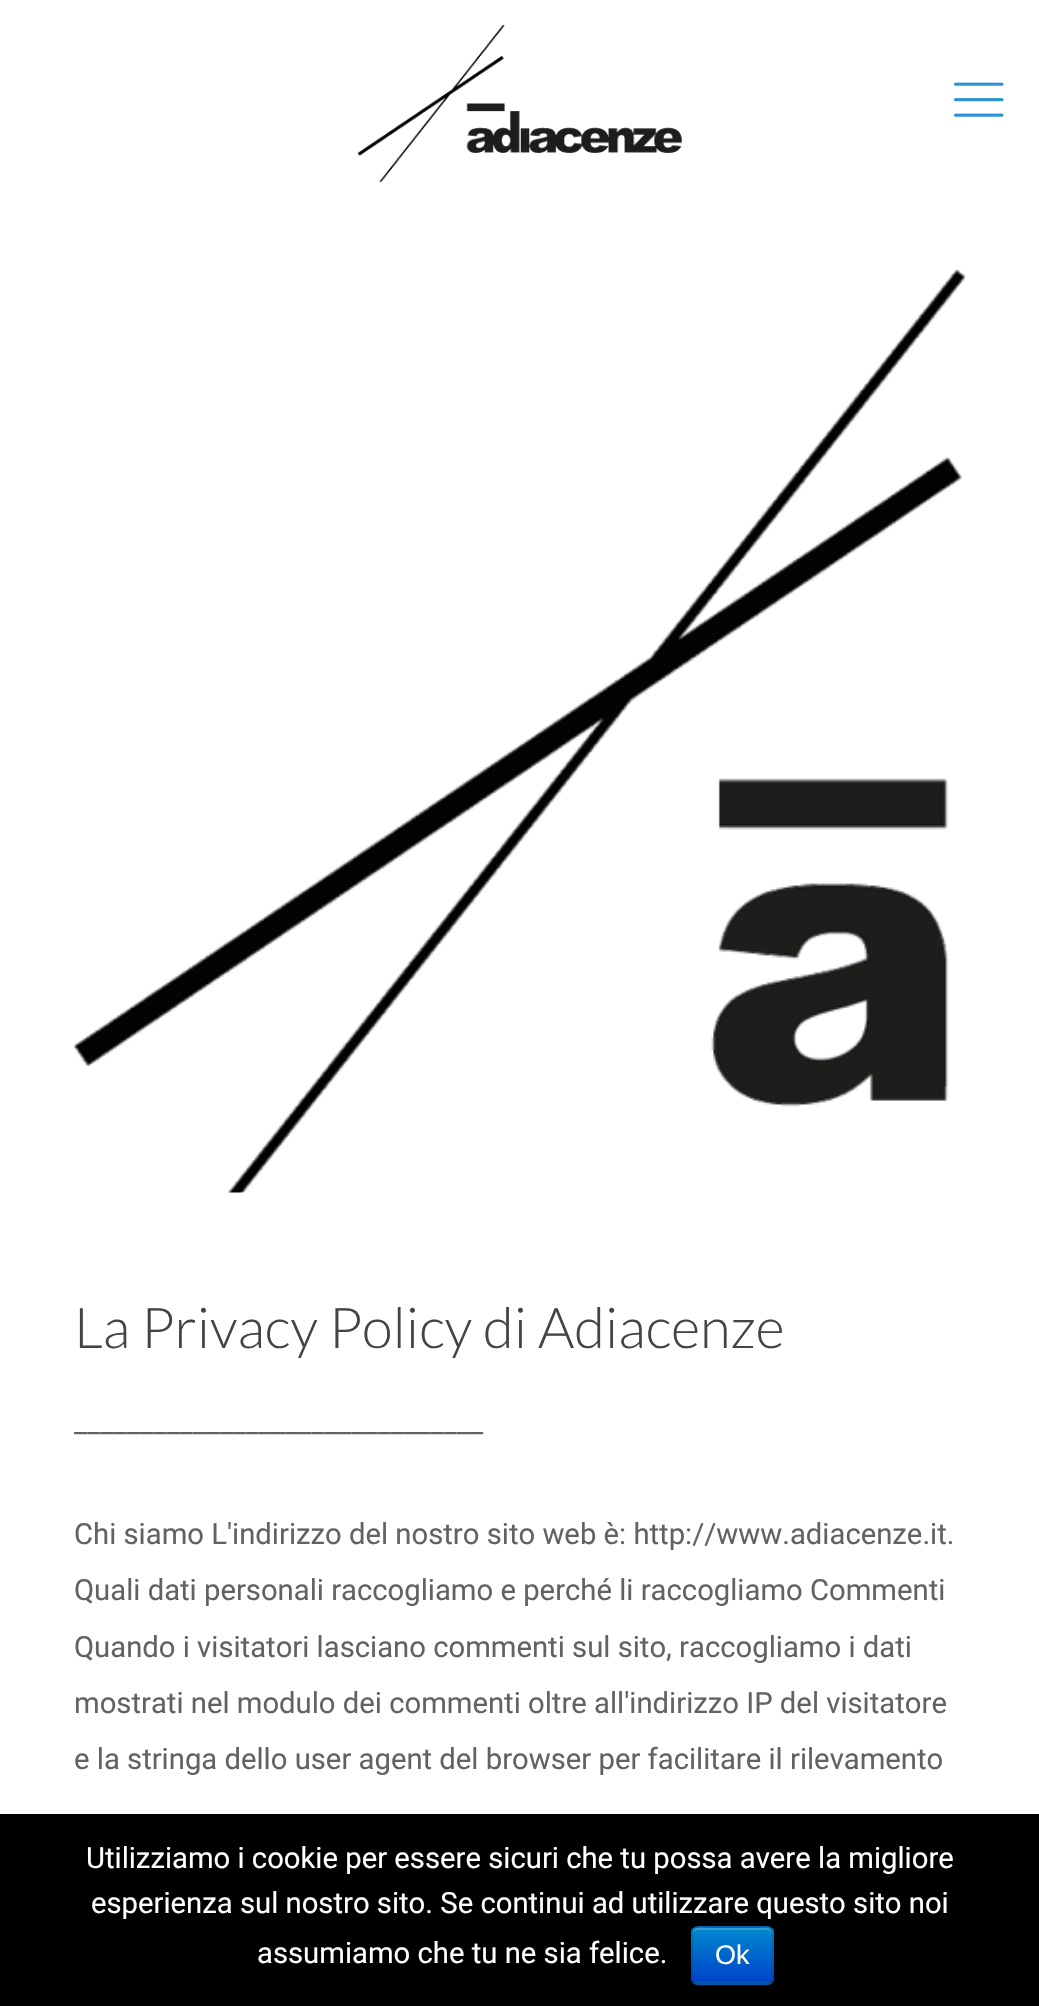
void draw(SkCanvas* canvas) {
    SkPaint paint;
    paint.setAntiAlias(true);
    auto face = [&](const char* family, int weight, float size, bool italic = false) {
        SkFontStyle style(weight, SkFontStyle::kNormal_Width,
            italic ? SkFontStyle::kItalic_Slant : SkFontStyle::kUpright_Slant);
        SkFont result(fontMgr->matchFamilyStyle(family, style), size);
        result.setSubpixel(true);
        return result;
    };
    auto write = [&](const char* s, float x, float y, const SkFont& font, SkColor color) {
        SkPaint ink(SkColor4f::FromColor(color));
        ink.setAntiAlias(true);
        canvas->drawString(s, x, y, font, ink);
    };
    auto block = [&](float x, float y, float w, float h, SkColor color) {
        SkPaint ink(SkColor4f::FromColor(color));
        ink.setAntiAlias(true);
        canvas->drawRect(SkRect::MakeXYWH(x, y, w, h), ink);
    };
    auto card = [&](float x, float y, float w, float h, float radius, SkColor color) {
        SkPaint ink(SkColor4f::FromColor(color));
        ink.setAntiAlias(true);
        canvas->drawRoundRect(SkRect::MakeXYWH(x, y, w, h), radius, radius, ink);
    };
    auto paste = [&](const char* path, float x, float y, float w, float h) {
        auto image = SkImages::DeferredFromEncodedData(SkData::MakeFromFileName(path));
        canvas->drawImageRect(image, SkRect::MakeXYWH(x, y, w, h), SkSamplingOptions());
    };
    canvas->clear(SK_ColorWHITE);
    paste("pic1.png", 357, 25, 325, 157);
    paste("pic2.png", 954, 82, 50, 35);
    paste("pic3.png", 74, 270, 892, 923);
    auto kFont1 = face("Lato", 300, 56.25f);
    write("La Privacy Policy di Adiacenze", 74, 1348, kFont1, SkColorSetRGB(68, 68, 68));
    auto kFont2 = face("Roboto", 400, 29.25f);
    write("_______________________________", 74, 1432, kFont2, SkColorSetRGB(98, 98, 98));
    write("Chi siamo L'indirizzo del nostro sito web è: http://www.adiacenze.it.", 74, 1544, kFont2, SkColorSetRGB(98, 98, 98));
    write("Quali dati personali raccogliamo e perché li raccogliamo Commenti", 74, 1600, kFont2, SkColorSetRGB(98, 98, 98));
    write("Quando i visitatori lasciano commenti sul sito, raccogliamo i dati", 74, 1657, kFont2, SkColorSetRGB(98, 98, 98));
    write("mostrati nel modulo dei commenti oltre all'indirizzo IP del visitatore", 74, 1713, kFont2, SkColorSetRGB(98, 98, 98));
    write("e la stringa dello user agent del browser per facilitare il rilevamento", 74, 1769, kFont2, SkColorSetRGB(98, 98, 98));
    block(0, 1814, 1039, 192, SK_ColorBLACK);
    write("Utilizziamo i cookie per essere sicuri che tu possa avere la migliore", 86, 1868, kFont2, SK_ColorWHITE);
    write("esperienza sul nostro sito. Se continui ad utilizzare questo sito noi", 91, 1913, kFont2, SK_ColorWHITE);
    write("assumiamo che tu ne sia felice.", 257, 1963, kFont2, SK_ColorWHITE);
    card(691, 1926, 83, 59, 7, SkColorSetRGB(0, 109, 204));
    canvas->save();
    canvas->clipPath(SkPathBuilder().moveTo(698, 1926).lineTo(767, 1926).cubicTo(771, 1926, 774, 1929, 774, 1933).lineTo(774, 1978).cubicTo(774, 1982, 771, 1985, 767, 1985).lineTo(698, 1985).cubicTo(694, 1985, 691, 1982, 691, 1978).lineTo(691, 1933).cubicTo(691, 1929, 694, 1926, 698, 1926).close().detach(), true);
    {
        const SkColor colors[] = {SkColorSetRGB(0, 136, 204), SkColorSetRGB(0, 68, 204)};
        const float stops[] = {0, 1};
        const SkPoint ends[] = {{732, 1928}, {732, 1982}};
        paint.setShader(SkGradientShader::MakeLinear(ends, colors, stops, 2, SkTileMode::kClamp));
        paint.setAlpha(255);
    }
    canvas->drawRect(SkRect::MakeXYWH(691, 1928, 83, 54), paint);
    canvas->restore();
    paint.setShader(nullptr);
    paint.setColor(SkColorSetARGB(51, 255, 255, 255));
    canvas->drawPath(SkPathBuilder().moveTo(698, 1930).lineTo(767, 1930).cubicTo(770, 1930, 772, 1933, 772, 1935).cubicTo(772, 1925, 764, 1928, 756, 1928).lineTo(710, 1928).cubicTo(701, 1928, 693, 1925, 693, 1935).cubicTo(693, 1933, 695, 1930, 698, 1930).close().detach(), paint);
    paint.setStyle(SkPaint::kStroke_Style);
    paint.setStrokeWidth(2.2f);
    paint.setColor(SkColorSetARGB(64, 0, 0, 0));
    canvas->drawPath(SkPathBuilder().moveTo(771, 1981.5f).cubicTo(770, 1983, 768.5f, 1983.5f, 767, 1983.5f).lineTo(697.5f, 1983.5f).cubicTo(696, 1983.5f, 694.5f, 1983, 693.5f, 1981.5f).detach(), paint);
    paint.setColor(SkColorSetARGB(26, 0, 0, 0));
    canvas->drawPath(SkPathBuilder().moveTo(693.5f, 1981.5f).cubicTo(692.5f, 1980.5f, 692, 1979, 692, 1978).lineTo(692, 1933).cubicTo(692, 1931.5f, 692.5f, 1930, 693.5f, 1929).cubicTo(694.5f, 1927.5f, 696, 1927, 697.5f, 1927).lineTo(767, 1927).cubicTo(768.5f, 1927, 770, 1927.5f, 771, 1929).cubicTo(772.5f, 1930, 773, 1931.5f, 773, 1933).lineTo(773, 1978).cubicTo(773, 1979, 772.5f, 1980.5f, 771, 1981.5f).detach(), paint);
    auto kFont3 = face("Liberation Sans", 400, 27);
    write("Ok", 715, 1964, kFont3, SK_ColorWHITE);
}
